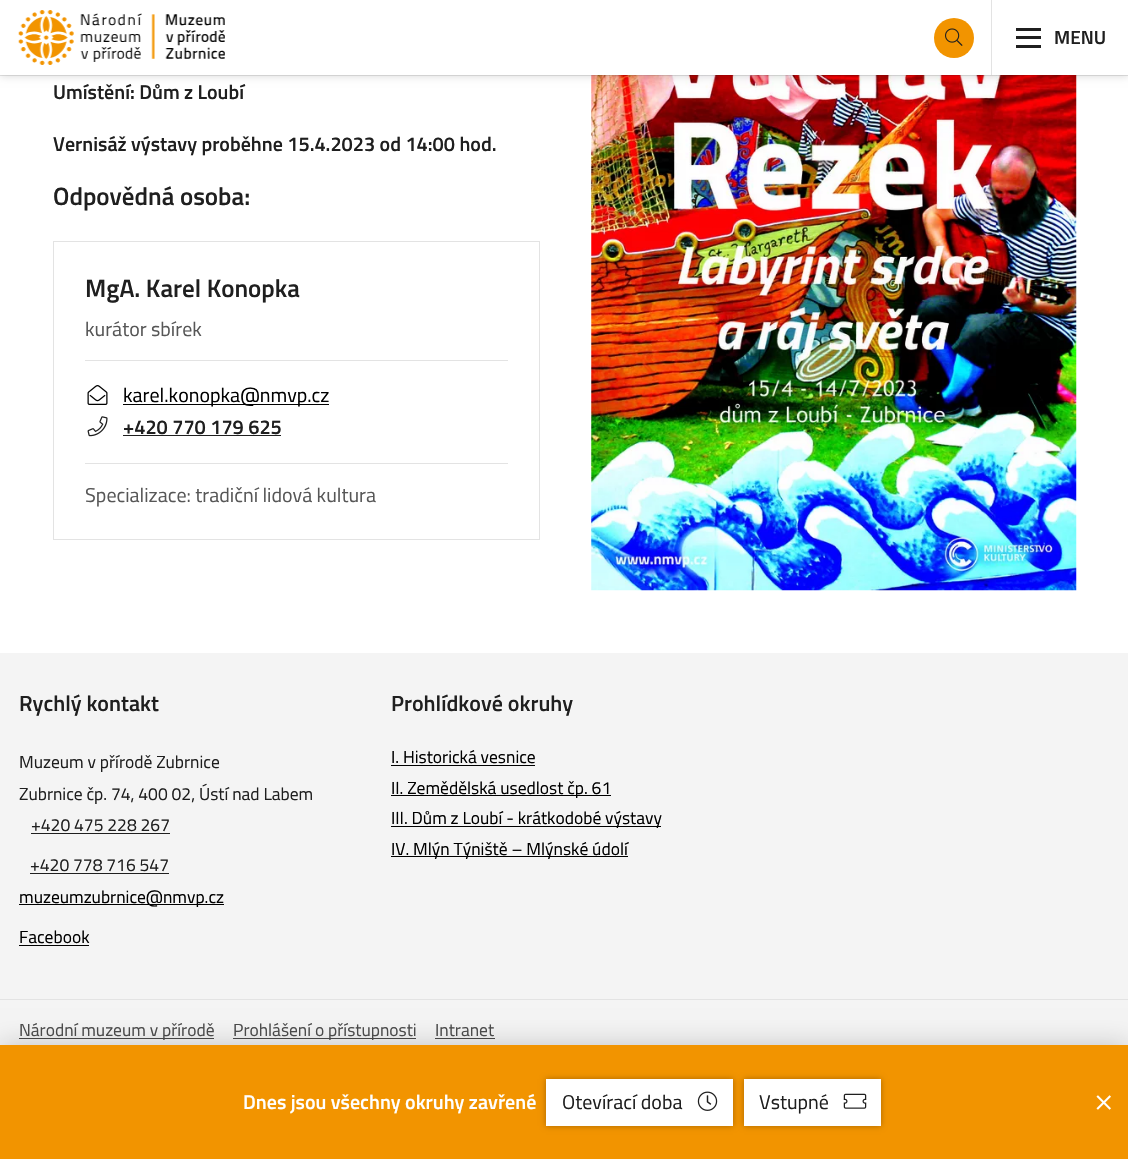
void draw(SkCanvas* canvas) {
    SkPaint paint;
    paint.setAntiAlias(true);
    auto face = [&](const char* family, int weight, float size, bool italic = false) {
        SkFontStyle style(weight, SkFontStyle::kNormal_Width,
            italic ? SkFontStyle::kItalic_Slant : SkFontStyle::kUpright_Slant);
        SkFont result(fontMgr->matchFamilyStyle(family, style), size);
        result.setSubpixel(true);
        return result;
    };
    auto write = [&](const char* s, float x, float y, const SkFont& font, SkColor color) {
        SkPaint ink(SkColor4f::FromColor(color));
        ink.setAntiAlias(true);
        canvas->drawString(s, x, y, font, ink);
    };
    auto block = [&](float x, float y, float w, float h, SkColor color) {
        SkPaint ink(SkColor4f::FromColor(color));
        ink.setAntiAlias(true);
        canvas->drawRect(SkRect::MakeXYWH(x, y, w, h), ink);
    };
    auto paste = [&](const char* path, float x, float y, float w, float h) {
        auto image = SkImages::DeferredFromEncodedData(SkData::MakeFromFileName(path));
        canvas->drawImageRect(image, SkRect::MakeXYWH(x, y, w, h), SkSamplingOptions());
    };
    canvas->clear(SK_ColorWHITE);
    paste("pic5.png", 591, 75, 486, 516);
    paint.setColor(SkColorSetARGB(38, 0, 0, 0));
    paint.setMaskFilter(SkMaskFilter::MakeBlur(kNormal_SkBlurStyle, 4));
    canvas->drawRect(SkRect::MakeXYWH(0, 0, 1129, 76), paint);
    paint.setMaskFilter(nullptr);
    block(0, 0, 1128, 75, SK_ColorWHITE);
    block(0, 75, 1128, 1, SkColorSetARGB(26, 0, 0, 0));
    paste("pic1.png", 18, 10, 207, 55);
    paint.setColor(SkColorSetRGB(242, 148, 0));
    canvas->drawCircle(954, 38, 20, paint);
    paste("pic2.png", 945, 28, 18, 18);
    block(991, 0, 1, 75, SkColorSetRGB(227, 227, 227));
    block(1016, 28, 25, 3, SkColorSetRGB(31, 31, 31));
    block(1016, 36, 25, 3, SkColorSetRGB(31, 31, 31));
    block(1016, 45, 25, 3, SkColorSetRGB(31, 31, 31));
    auto kFont1 = face("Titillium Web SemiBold", 600, 19);
    write("MENU", 1054, 44, kFont1, SkColorSetRGB(31, 31, 31));
    auto kFont2 = face("Titillium Web SemiBold", 600, 20);
    write("Umístění: Dům z Loubí", 53, 99, kFont2, SkColorSetRGB(31, 31, 31));
    write("Vernisáž výstavy proběhne 15.4.2023 od 14:00 hod.", 53, 151, kFont2, SkColorSetRGB(31, 31, 31));
    auto kFont3 = face("Titillium Web SemiBold", 600, 25);
    write("Odpovědná osoba:", 53, 205, kFont3, SkColorSetRGB(31, 31, 31));
    paint.setStyle(SkPaint::kStroke_Style);
    paint.setStrokeWidth(1);
    paint.setColor(SkColorSetRGB(227, 227, 227));
    canvas->drawRect(SkRect::MakeXYWH(53.5f, 241.5f, 486, 298), paint);
    write("MgA. Karel Konopka", 85, 297, kFont3, SkColorSetRGB(31, 31, 31));
    auto kFont4 = face("Titillium Web", 400, 20);
    write("kurátor sbírek", 85, 336, kFont4, SkColorSetRGB(87, 87, 87));
    block(85, 360, 423, 1, SkColorSetRGB(227, 227, 227));
    paste("pic3.png", 87, 385, 21, 20);
    block(123, 404, 206, 1, SK_ColorBLACK);
    write("karel.konopka@nmvp.cz", 123, 402, kFont4, SK_ColorBLACK);
    paste("pic4.png", 87, 416, 21, 21);
    write("+420 770 179 625", 123, 434, kFont2, SkColorSetRGB(31, 31, 31));
    block(123, 435, 158, 1, SkColorSetRGB(31, 31, 31));
    block(85, 463, 423, 1, SkColorSetRGB(227, 227, 227));
    write("Specializace: tradiční lidová kultura", 85, 502, kFont4, SkColorSetRGB(87, 87, 87));
    block(0, 653, 1128, 392, SkColorSetRGB(244, 244, 244));
    block(19, 1038, 195, 1, SkColorSetRGB(74, 74, 74));
    block(233, 1038, 183, 1, SkColorSetRGB(74, 74, 74));
    block(435, 1038, 60, 1, SkColorSetRGB(74, 74, 74));
    paint.setStyle(SkPaint::kFill_Style);
    paint.setColor(SkColorSetARGB(51, 0, 0, 0));
    paint.setMaskFilter(SkMaskFilter::MakeBlur(kNormal_SkBlurStyle, 12.5f));
    canvas->drawRect(SkRect::MakeXYWH(0, 1045, 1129, 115), paint);
    paint.setMaskFilter(nullptr);
    block(0, 1045, 1128, 114, SkColorSetRGB(242, 148, 0));
    write("Dnes jsou všechny okruhy zavřené", 243, 1109, kFont2, SK_ColorWHITE);
    paint.setColor(SkColorSetARGB(77, 0, 0, 0));
    paint.setMaskFilter(SkMaskFilter::MakeBlur(kNormal_SkBlurStyle, 3));
    canvas->drawRect(SkRect::MakeXYWH(546, 1079, 187, 47), paint);
    paint.setMaskFilter(nullptr);
    block(546, 1079, 187, 47, SK_ColorWHITE);
    write("Otevírací doba", 562, 1109, kFont4, SkColorSetRGB(31, 31, 31));
    paste("pic6.png", 697, 1091, 21, 20);
    paint.setMaskFilter(SkMaskFilter::MakeBlur(kNormal_SkBlurStyle, 3));
    canvas->drawRect(SkRect::MakeXYWH(744, 1079, 137, 47), paint);
    paint.setMaskFilter(nullptr);
    block(744, 1079, 137, 47, SK_ColorWHITE);
    write("Vstupné", 759, 1109, kFont4, SkColorSetRGB(31, 31, 31));
    paste("pic7.png", 843, 1093, 24, 16);
    paste("pic8.png", 1096, 1095, 15, 15);
    auto kFont5 = face("Titillium Web SemiBold", 600, 22);
    write("Rychlý kontakt", 19, 711, kFont5, SkColorSetRGB(31, 31, 31));
    auto kFont6 = face("Titillium Web", 400, 17.5f);
    write("Muzeum v přírodě Zubrnice", 19, 768, kFont6, SkColorSetRGB(31, 31, 31));
    write("Zubrnice čp. 74, 400 02, Ústí nad Labem", 19, 800, kFont6, SkColorSetRGB(31, 31, 31));
    write("+420 475 228 267", 31, 831, kFont6, SkColorSetRGB(31, 31, 31));
    block(31, 833, 139, 1, SkColorSetRGB(31, 31, 31));
    write("+420 778 716 547", 30, 871, kFont6, SkColorSetRGB(31, 31, 31));
    block(30, 873, 139, 1, SkColorSetRGB(31, 31, 31));
    block(19, 904, 205, 1, SK_ColorBLACK);
    write("muzeumzubrnice@nmvp.cz", 19, 903, kFont6, SK_ColorBLACK);
    write("Facebook", 19, 943, kFont6, SK_ColorBLACK);
    block(19, 945, 70, 1, SK_ColorBLACK);
    write("Prohlídkové okruhy", 391, 711, kFont5, SkColorSetRGB(31, 31, 31));
    write("I. Historická vesnice", 391, 763, kFont6, SK_ColorBLACK);
    block(391, 765, 144, 1, SK_ColorBLACK);
    block(391, 795, 220, 1, SK_ColorBLACK);
    write("II. Zemědělská usedlost čp. 61", 391, 794, kFont6, SK_ColorBLACK);
    block(391, 826, 270, 1, SK_ColorBLACK);
    write("III. Dům z Loubí - krátkodobé výstavy", 391, 824, kFont6, SK_ColorBLACK);
    block(391, 856, 237, 1, SK_ColorBLACK);
    write("IV. Mlýn Týniště – Mlýnské údolí", 391, 855, kFont6, SK_ColorBLACK);
    block(0, 999, 1128, 1, SkColorSetRGB(227, 227, 227));
    write("Národní muzeum v přírodě", 19, 1036, kFont6, SkColorSetRGB(74, 74, 74));
    write("Prohlášení o přístupnosti", 233, 1036, kFont6, SkColorSetRGB(74, 74, 74));
    write("Intranet", 435, 1036, kFont6, SkColorSetRGB(74, 74, 74));
}
